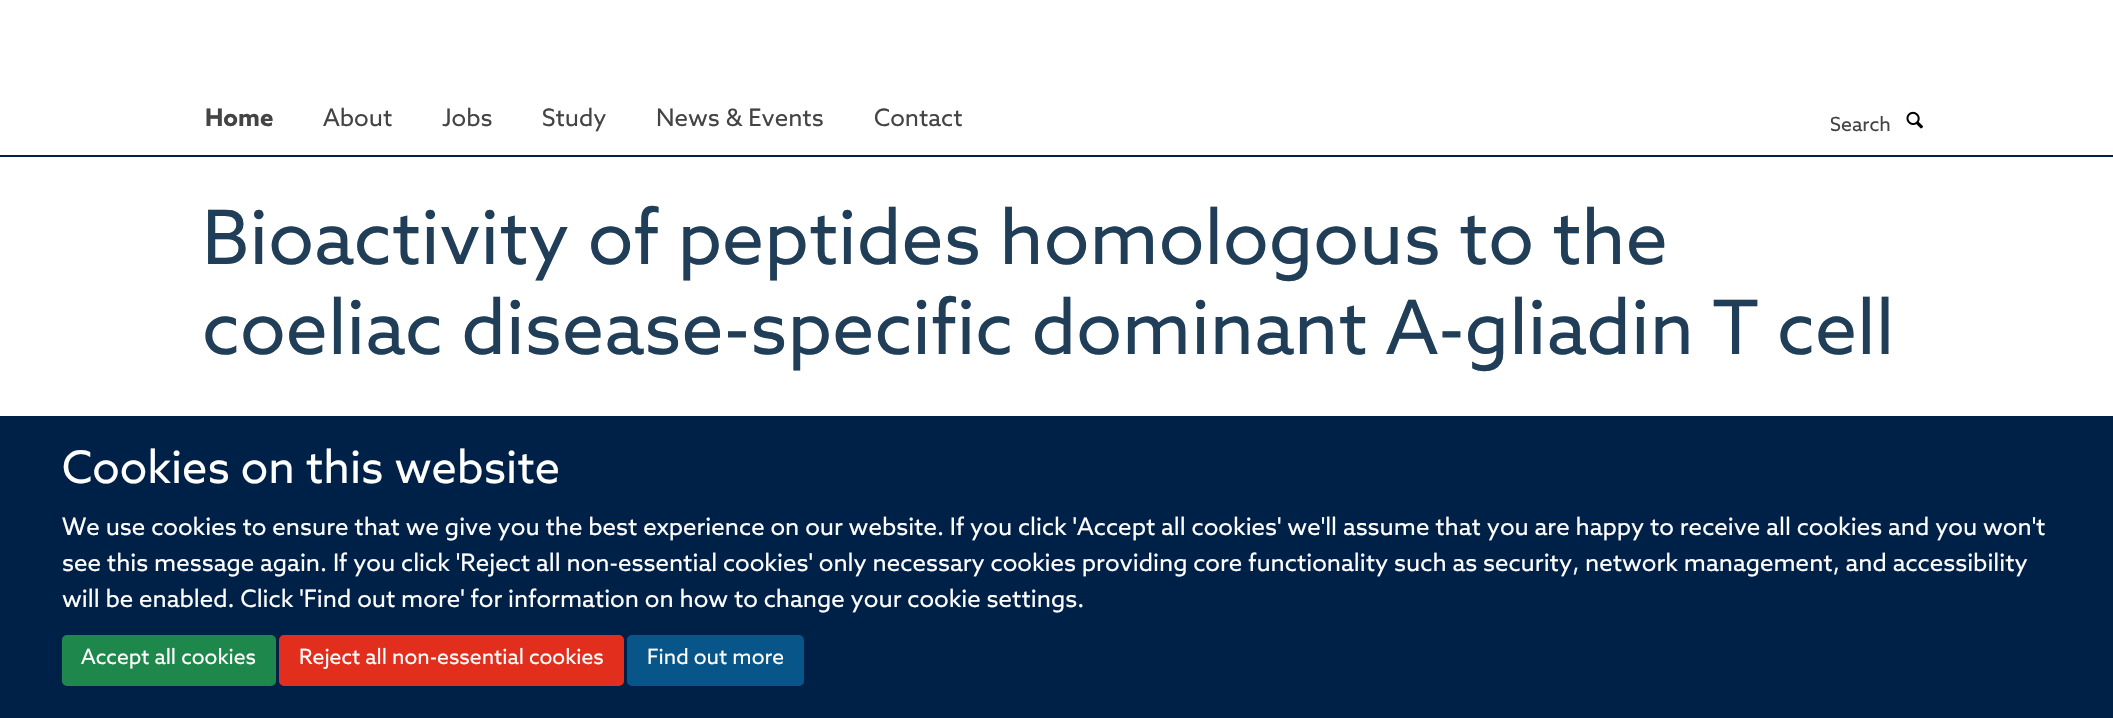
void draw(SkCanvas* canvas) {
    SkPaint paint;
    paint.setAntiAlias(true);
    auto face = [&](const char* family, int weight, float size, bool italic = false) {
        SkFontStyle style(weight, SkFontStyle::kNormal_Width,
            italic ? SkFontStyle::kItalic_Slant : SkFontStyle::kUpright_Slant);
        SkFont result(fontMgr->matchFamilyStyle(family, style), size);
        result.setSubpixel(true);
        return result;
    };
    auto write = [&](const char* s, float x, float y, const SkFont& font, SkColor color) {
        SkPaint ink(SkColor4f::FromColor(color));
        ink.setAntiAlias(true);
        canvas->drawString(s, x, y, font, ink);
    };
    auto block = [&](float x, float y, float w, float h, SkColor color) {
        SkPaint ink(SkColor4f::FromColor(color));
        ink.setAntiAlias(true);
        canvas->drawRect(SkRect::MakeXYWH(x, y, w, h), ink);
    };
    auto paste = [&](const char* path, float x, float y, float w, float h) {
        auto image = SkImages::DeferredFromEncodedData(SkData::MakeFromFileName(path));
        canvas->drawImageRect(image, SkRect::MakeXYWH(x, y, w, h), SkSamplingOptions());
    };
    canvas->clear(SK_ColorWHITE);
    block(0, 155, 2113, 2, SkColorSetRGB(0, 33, 71));
    auto kFont1 = face("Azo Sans", 700, 24);
    write("Home", 205, 126, kFont1, SkColorSetRGB(68, 68, 68));
    auto kFont2 = face("Azo Sans", 400, 24);
    write("About", 323, 126, kFont2, SkColorSetRGB(68, 68, 68));
    write("Jobs", 442, 126, kFont2, SkColorSetRGB(68, 68, 68));
    write("Study", 542, 126, kFont2, SkColorSetRGB(68, 68, 68));
    write("News & Events", 656, 126, kFont2, SkColorSetRGB(68, 68, 68));
    write("Contact", 874, 126, kFont2, SkColorSetRGB(68, 68, 68));
    auto kFont3 = face("Azo Sans", 400, 19.5f);
    write("Search", 1830, 131, kFont3, SkColorSetRGB(68, 68, 68));
    paste("pic1.png", 1906, 111, 17, 18);
    auto kFont4 = face("Azo Sans", 400, 75);
    write("Bioactivity of peptides homologous to the", 202, 264, kFont4, SkColorSetRGB(32, 62, 88));
    write("coeliac disease-specific dominant A-gliadin T cell", 202, 354, kFont4, SkColorSetRGB(32, 62, 88));
    block(0, 416, 2113, 302, SkColorSetRGB(0, 33, 71));
    auto kFont5 = face("Azo Sans", 400, 45);
    write("Cookies on this website", 62, 483, kFont5, SK_ColorWHITE);
    write("We use cookies to ensure that we give you the best experience on our website. If you click 'Accept all cookies' we'll assume that you are happy to receive all cookies and you won't", 62, 535, kFont2, SK_ColorWHITE);
    write("see this message again. If you click 'Reject all non-essential cookies' only necessary cookies providing core functionality such as security, network management, and accessibility", 62, 571, kFont2, SK_ColorWHITE);
    write("will be enabled. Click 'Find out more' for information on how to change your cookie settings.", 62, 607, kFont2, SK_ColorWHITE);
    paint.setColor(SkColorSetRGB(30, 135, 75));
    canvas->drawRoundRect(SkRect::MakeXYWH(63, 636, 212, 49), 4, 4, paint);
    paint.setStyle(SkPaint::kStroke_Style);
    paint.setStrokeWidth(2);
    canvas->drawRoundRect(SkRect::MakeXYWH(63, 636, 212, 49), 4, 4, paint);
    auto kFont6 = face("Azo Sans", 400, 21);
    write("Accept all cookies", 81, 664, kFont6, SK_ColorWHITE);
    paint.setStyle(SkPaint::kFill_Style);
    paint.setColor(SkColorSetRGB(226, 46, 28));
    canvas->drawRoundRect(SkRect::MakeXYWH(280, 636, 343, 49), 4, 4, paint);
    paint.setStyle(SkPaint::kStroke_Style);
    canvas->drawRoundRect(SkRect::MakeXYWH(280, 636, 343, 49), 4, 4, paint);
    write("Reject all non-essential cookies", 299, 664, kFont6, SK_ColorWHITE);
    paint.setStyle(SkPaint::kFill_Style);
    paint.setColor(SkColorSetRGB(8, 85, 137));
    canvas->drawRoundRect(SkRect::MakeXYWH(628, 636, 175, 49), 4, 4, paint);
    paint.setStyle(SkPaint::kStroke_Style);
    canvas->drawRoundRect(SkRect::MakeXYWH(628, 636, 175, 49), 4, 4, paint);
    write("Find out more", 647, 664, kFont6, SK_ColorWHITE);
}
